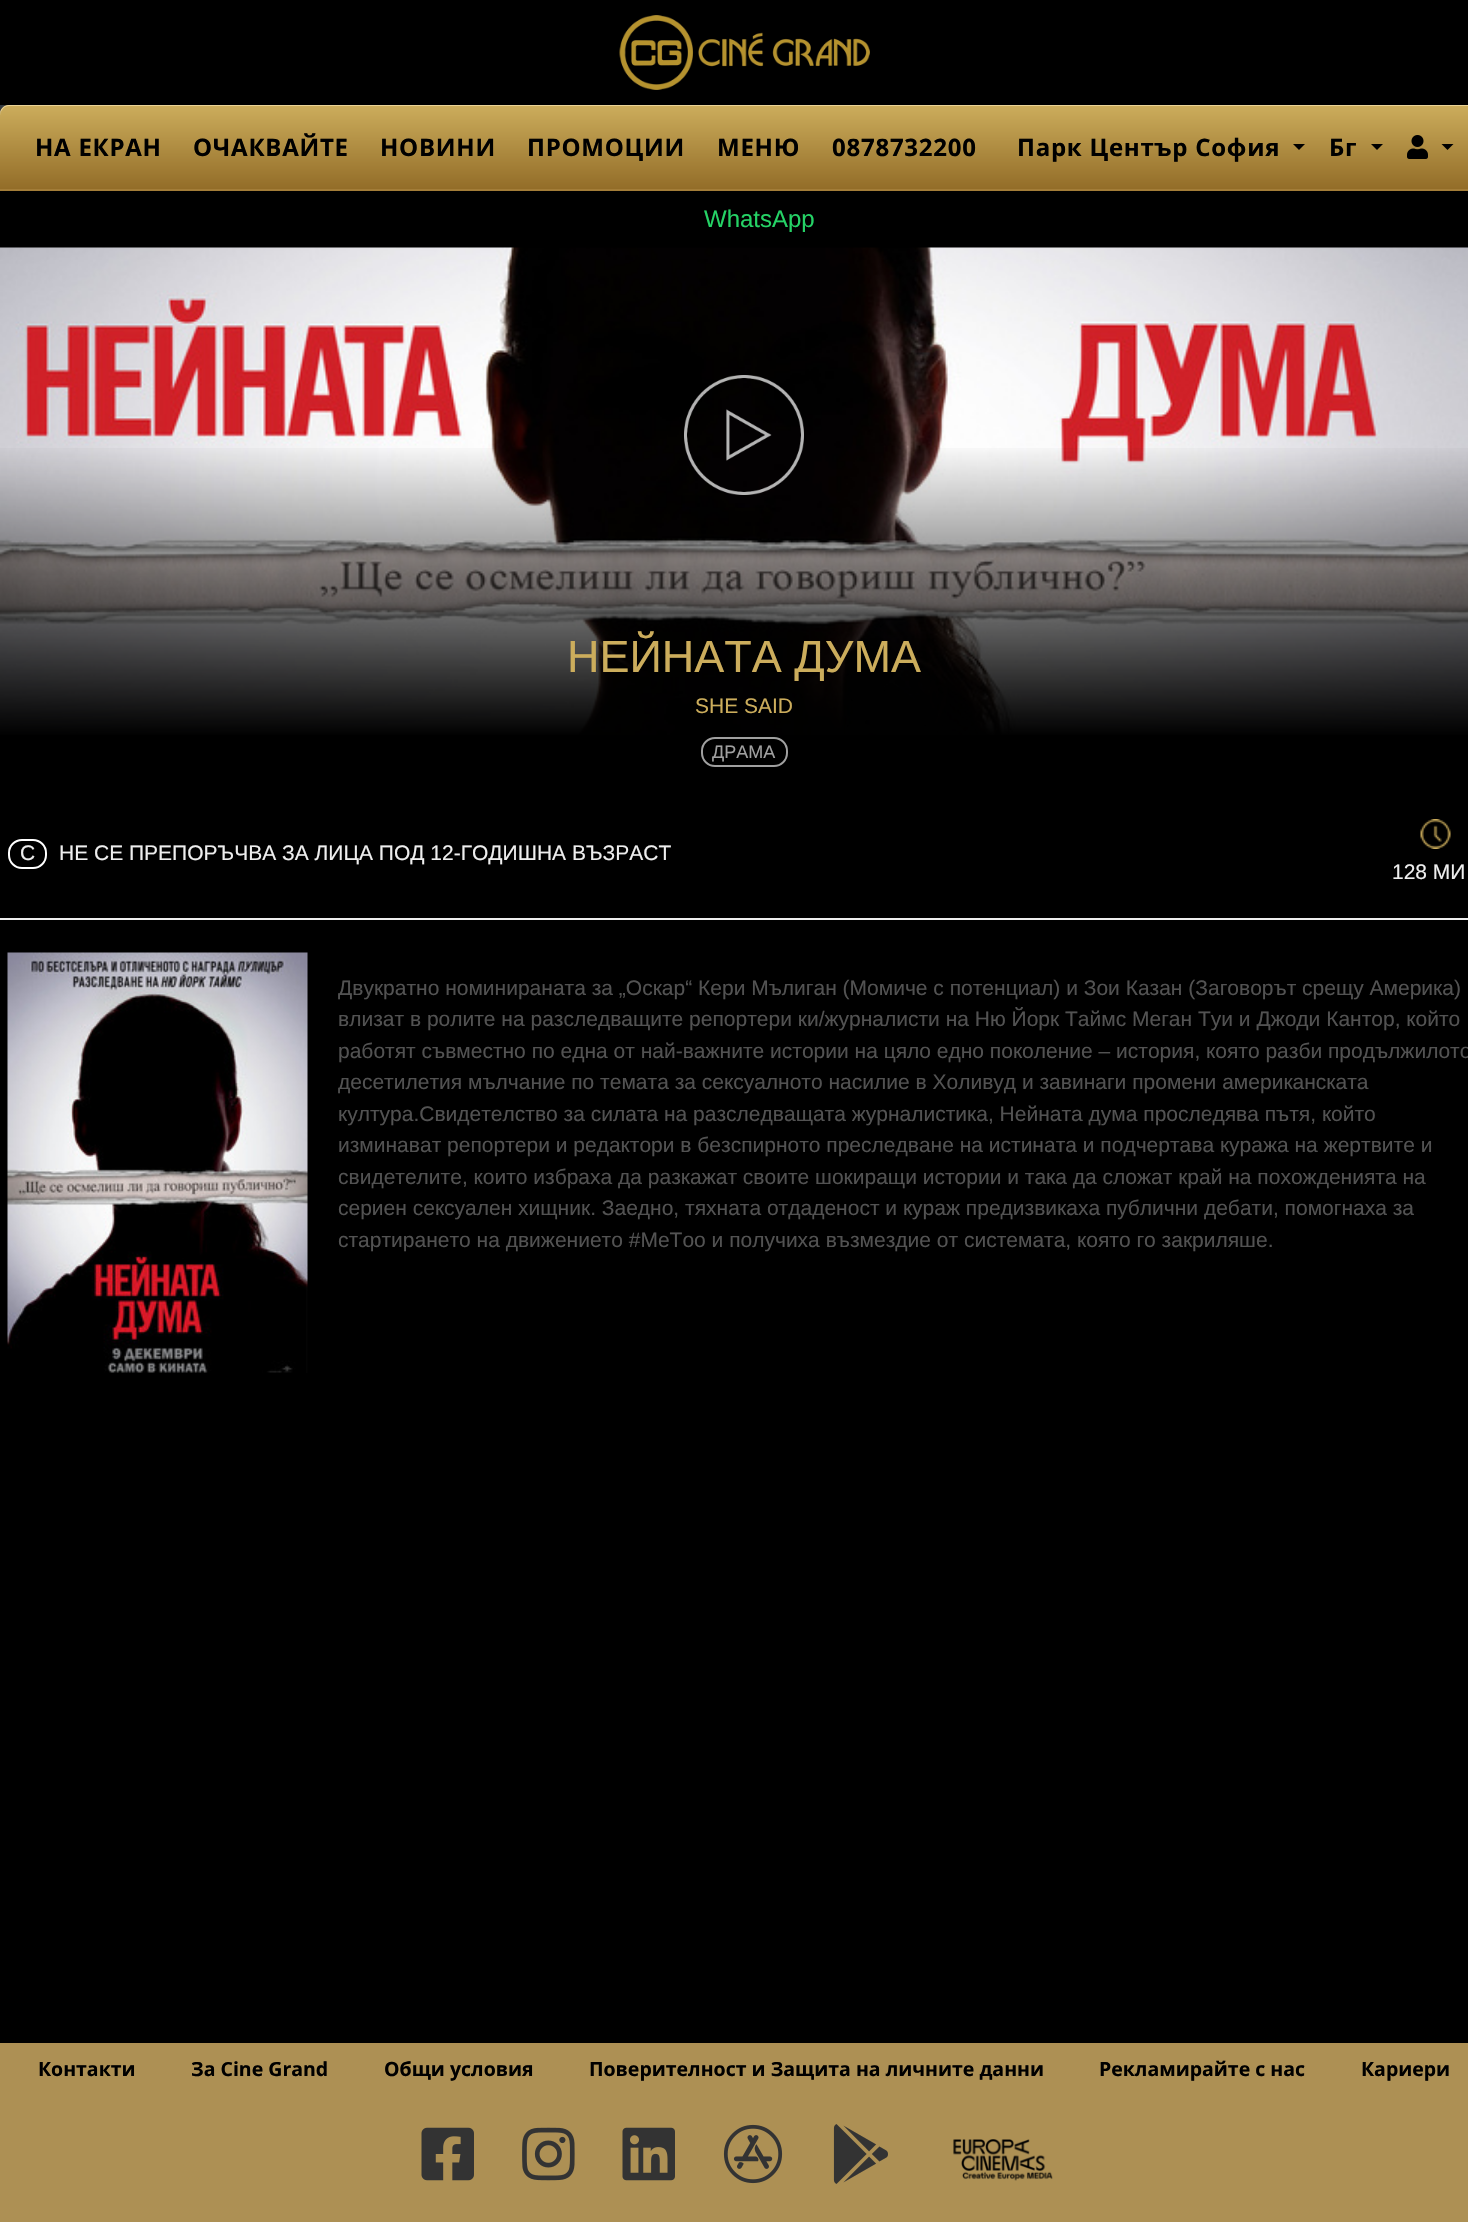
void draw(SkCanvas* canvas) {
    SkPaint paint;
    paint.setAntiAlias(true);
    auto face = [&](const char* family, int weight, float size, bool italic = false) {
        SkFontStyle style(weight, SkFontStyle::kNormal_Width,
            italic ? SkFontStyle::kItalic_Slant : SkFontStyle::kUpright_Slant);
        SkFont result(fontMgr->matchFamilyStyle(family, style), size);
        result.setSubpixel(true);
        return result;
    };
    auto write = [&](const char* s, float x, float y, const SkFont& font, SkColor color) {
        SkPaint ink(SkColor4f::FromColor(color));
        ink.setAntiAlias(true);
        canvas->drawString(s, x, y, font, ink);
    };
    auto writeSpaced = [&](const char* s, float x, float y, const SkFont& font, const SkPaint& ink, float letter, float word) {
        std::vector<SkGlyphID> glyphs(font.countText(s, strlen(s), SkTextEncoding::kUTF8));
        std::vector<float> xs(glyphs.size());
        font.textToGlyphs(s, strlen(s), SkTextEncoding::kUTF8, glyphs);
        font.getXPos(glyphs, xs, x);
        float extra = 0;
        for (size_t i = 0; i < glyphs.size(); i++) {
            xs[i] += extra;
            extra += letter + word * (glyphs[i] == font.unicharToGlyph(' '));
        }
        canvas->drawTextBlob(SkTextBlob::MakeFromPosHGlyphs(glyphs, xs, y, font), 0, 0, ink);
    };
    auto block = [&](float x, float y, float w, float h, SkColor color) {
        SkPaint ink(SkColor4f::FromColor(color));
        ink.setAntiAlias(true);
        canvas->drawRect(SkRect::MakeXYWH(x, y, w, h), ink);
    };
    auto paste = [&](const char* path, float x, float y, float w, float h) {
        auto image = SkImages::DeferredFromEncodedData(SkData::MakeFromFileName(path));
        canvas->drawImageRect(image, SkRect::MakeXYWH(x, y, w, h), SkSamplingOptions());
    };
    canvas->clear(SK_ColorBLACK);
    paste("pic1.png", 619, 15, 251, 75);
    block(0, 105, 9, 9, SkColorSetRGB(52, 58, 64));
    paint.setColor(SK_ColorBLACK);
    paint.setMaskFilter(SkMaskFilter::MakeBlur(kNormal_SkBlurStyle, 1));
    canvas->drawRoundRect(SkRect::MakeXYWH(0, 108, 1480, 86), 9, 9, paint);
    paint.setMaskFilter(nullptr);
    {
        const SkColor colors[] = {SkColorSetRGB(204, 173, 92), SkColorSetRGB(147, 109, 40)};
        const float stops[] = {0, 1};
        const SkPoint ends[] = {{744, 105}, {744, 189}};
        paint.setShader(SkGradientShader::MakeLinear(ends, colors, stops, 2, SkTileMode::kClamp));
        paint.setAlpha(255);
    }
    canvas->drawPath(SkPathBuilder().moveTo(9, 105).lineTo(1468, 105).cubicTo(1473, 105, 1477, 109, 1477, 114).lineTo(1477, 189).lineTo(0, 189).lineTo(0, 114).cubicTo(0, 109, 4, 105, 9, 105).close().detach(), paint);
    paint.setShader(nullptr);
    paint.setColor(SkColorSetRGB(234, 211, 151));
    canvas->drawPath(SkPathBuilder().moveTo(9, 106).lineTo(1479, 106).cubicTo(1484, 106, 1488, 111, 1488, 116).lineTo(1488, 114).cubicTo(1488, 109, 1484, 105, 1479, 105).lineTo(9, 105).cubicTo(4, 105, 0, 109, 0, 114).lineTo(0, 116).cubicTo(0, 111, 4, 106, 9, 106).close().detach(), paint);
    block(0, 189, 1468, 2, SkColorSetRGB(163, 125, 56));
    auto kFont1 = face("Open Sans", 700, 24);
    paint.setColor(SK_ColorBLACK);
    writeSpaced("НА ЕКРАН", 35, 156, kFont1, paint, 0.75f, 0);
    writeSpaced("ОЧАКВАЙТЕ", 193, 156, kFont1, paint, 0.75f, 0);
    writeSpaced("НОВИНИ", 380, 156, kFont1, paint, 0.75f, 0);
    writeSpaced("ПРОМОЦИИ", 527, 156, kFont1, paint, 0.75f, 0);
    writeSpaced("МЕНЮ", 717, 156, kFont1, paint, 0.75f, 0);
    writeSpaced("0878732200", 832, 156, kFont1, paint, 0.75f, 0);
    writeSpaced("Парк Център София", 1017, 156, kFont1, paint, 0.75f, 0);
    canvas->drawPath(SkPathBuilder().moveTo(1293, 144).lineTo(1305, 144).lineTo(1299, 150).close().detach(), paint);
    writeSpaced("Бг", 1329, 156, kFont1, paint, 0.75f, 0);
    canvas->drawPath(SkPathBuilder().moveTo(1371, 144).lineTo(1383, 144).lineTo(1377, 150).close().detach(), paint);
    paste("pic2.png", 1407, 135, 21, 24);
    canvas->drawPath(SkPathBuilder().moveTo(1441.5f, 144).lineTo(1453.5f, 144).lineTo(1447.5f, 150).close().detach(), paint);
    auto kFont2 = face("Liberation Sans", 400, 24);
    write("WhatsApp", 704, 227, kFont2, SkColorSetRGB(37, 211, 102));
    paste("pic3.png", 0, 247, 1468, 488);
    {
        const SkColor colors[] = {SkColorSetARGB(0, 0, 0, 0), SK_ColorBLACK};
        const float stops[] = {0, 1};
        const SkPoint ends[] = {{744, 442}, {744, 737}};
        paint.setShader(SkGradientShader::MakeLinear(ends, colors, stops, 2, SkTileMode::kClamp));
        paint.setAlpha(255);
    }
    canvas->drawRect(SkRect::MakeXYWH(0, 448, 1468, 287), paint);
    paste("pic4.png", 684, 375, 120, 120);
    auto kFont3 = face("Liberation Sans", 400, 45);
    write("НЕЙНАТА ДУМА", 567, 672, kFont3, SkColorSetRGB(204, 173, 92));
    auto kFont4 = face("Liberation Sans", 400, 21);
    write("SHE SAID", 695, 713, kFont4, SkColorSetRGB(204, 173, 92));
    paint.setStyle(SkPaint::kStroke_Style);
    paint.setStrokeWidth(2);
    paint.setShader(nullptr);
    paint.setColor(SkColorSetRGB(160, 160, 160));
    canvas->drawRoundRect(SkRect::MakeXYWH(702, 738, 85, 28), 13, 13, paint);
    auto kFont5 = face("Liberation Sans", 400, 18);
    write("ДРАМА", 712, 758, kFont5, SkColorSetRGB(160, 160, 160));
    block(0, 918, 1468, 2, SkColorSetRGB(238, 238, 238));
    paint.setColor(SK_ColorWHITE);
    canvas->drawRoundRect(SkRect::MakeXYWH(9, 840, 37, 28), 13, 13, paint);
    write("C", 20, 860, kFont4, SkColorSetRGB(238, 238, 238));
    write("НЕ СЕ ПРЕПОРЪЧВА ЗА ЛИЦА ПОД 12-ГОДИШНА ВЪЗРАСТ", 59, 860, kFont4, SkColorSetRGB(238, 238, 238));
    paste("pic5.png", 1420, 819, 31, 30);
    write("128 МИ", 1392, 879, kFont4, SkColorSetRGB(238, 238, 238));
    paste("pic6.png", 7, 952, 301, 421);
    write("Двукратно номинираната за „Оскар“ Кери Мълиган (Момиче с потенциал) и Зои Казан (Заговорът срещу Америка)", 338, 995, kFont4, SkColorSetRGB(82, 82, 82));
    write("влизат в ролите на разследващите репортери ки/журналисти на Ню Йорк Таймс Меган Туи и Джоди Кантор, който", 338, 1026, kFont4, SkColorSetRGB(82, 82, 82));
    write("работят съвместно по една от най-важните истории на цяло едно поколение – история, която разби продължилото", 338, 1058, kFont4, SkColorSetRGB(82, 82, 82));
    write("десетилетия мълчание по темата за сексуалното насилие в Холивуд и завинаги промени американската", 338, 1089, kFont4, SkColorSetRGB(82, 82, 82));
    write("култура.Свидетелство за силата на разследващата журналистика, Нейната дума проследява пътя, който", 338, 1121, kFont4, SkColorSetRGB(82, 82, 82));
    write("изминават репортери и редактори в безспирното преследване на истината и подчертава куража на жертвите и", 338, 1152, kFont4, SkColorSetRGB(82, 82, 82));
    write("свидетелите, които избраха да разкажат своите шокиращи истории и така да сложат край на похожденията на", 338, 1184, kFont4, SkColorSetRGB(82, 82, 82));
    write("сериен сексуален хищник. Заедно, тяхната отдаденост и кураж предизвикаха публични дебати, помогнаха за", 338, 1215, kFont4, SkColorSetRGB(82, 82, 82));
    write("стартирането на движението #MeToo и получиха възмездие от системата, която го закриляше.", 338, 1247, kFont4, SkColorSetRGB(82, 82, 82));
    block(0, 2043, 1468, 179, SkColorSetRGB(173, 144, 84));
    auto kFont6 = face("Open Sans", 700, 19.5f);
    write("Контакти", 38, 2076, kFont6, SK_ColorBLACK);
    write("За Cine Grand", 191, 2076, kFont6, SK_ColorBLACK);
    write("Общи условия", 384, 2076, kFont6, SK_ColorBLACK);
    write("Поверителност и Защита на личните данни", 589, 2076, kFont6, SK_ColorBLACK);
    write("Рекламирайте с нас", 1099, 2076, kFont6, SK_ColorBLACK);
    write("Кариери", 1361, 2076, kFont6, SK_ColorBLACK);
    paste("pic7.png", 421, 2127, 53, 54);
    paste("pic8.png", 522, 2127, 53, 54);
    paste("pic9.png", 622, 2127, 53, 54);
    paste("pic10.png", 723, 2124, 60, 60);
    paste("pic11.png", 833, 2124, 55, 60);
    paste("pic12.png", 953, 2139, 100, 42);
}
